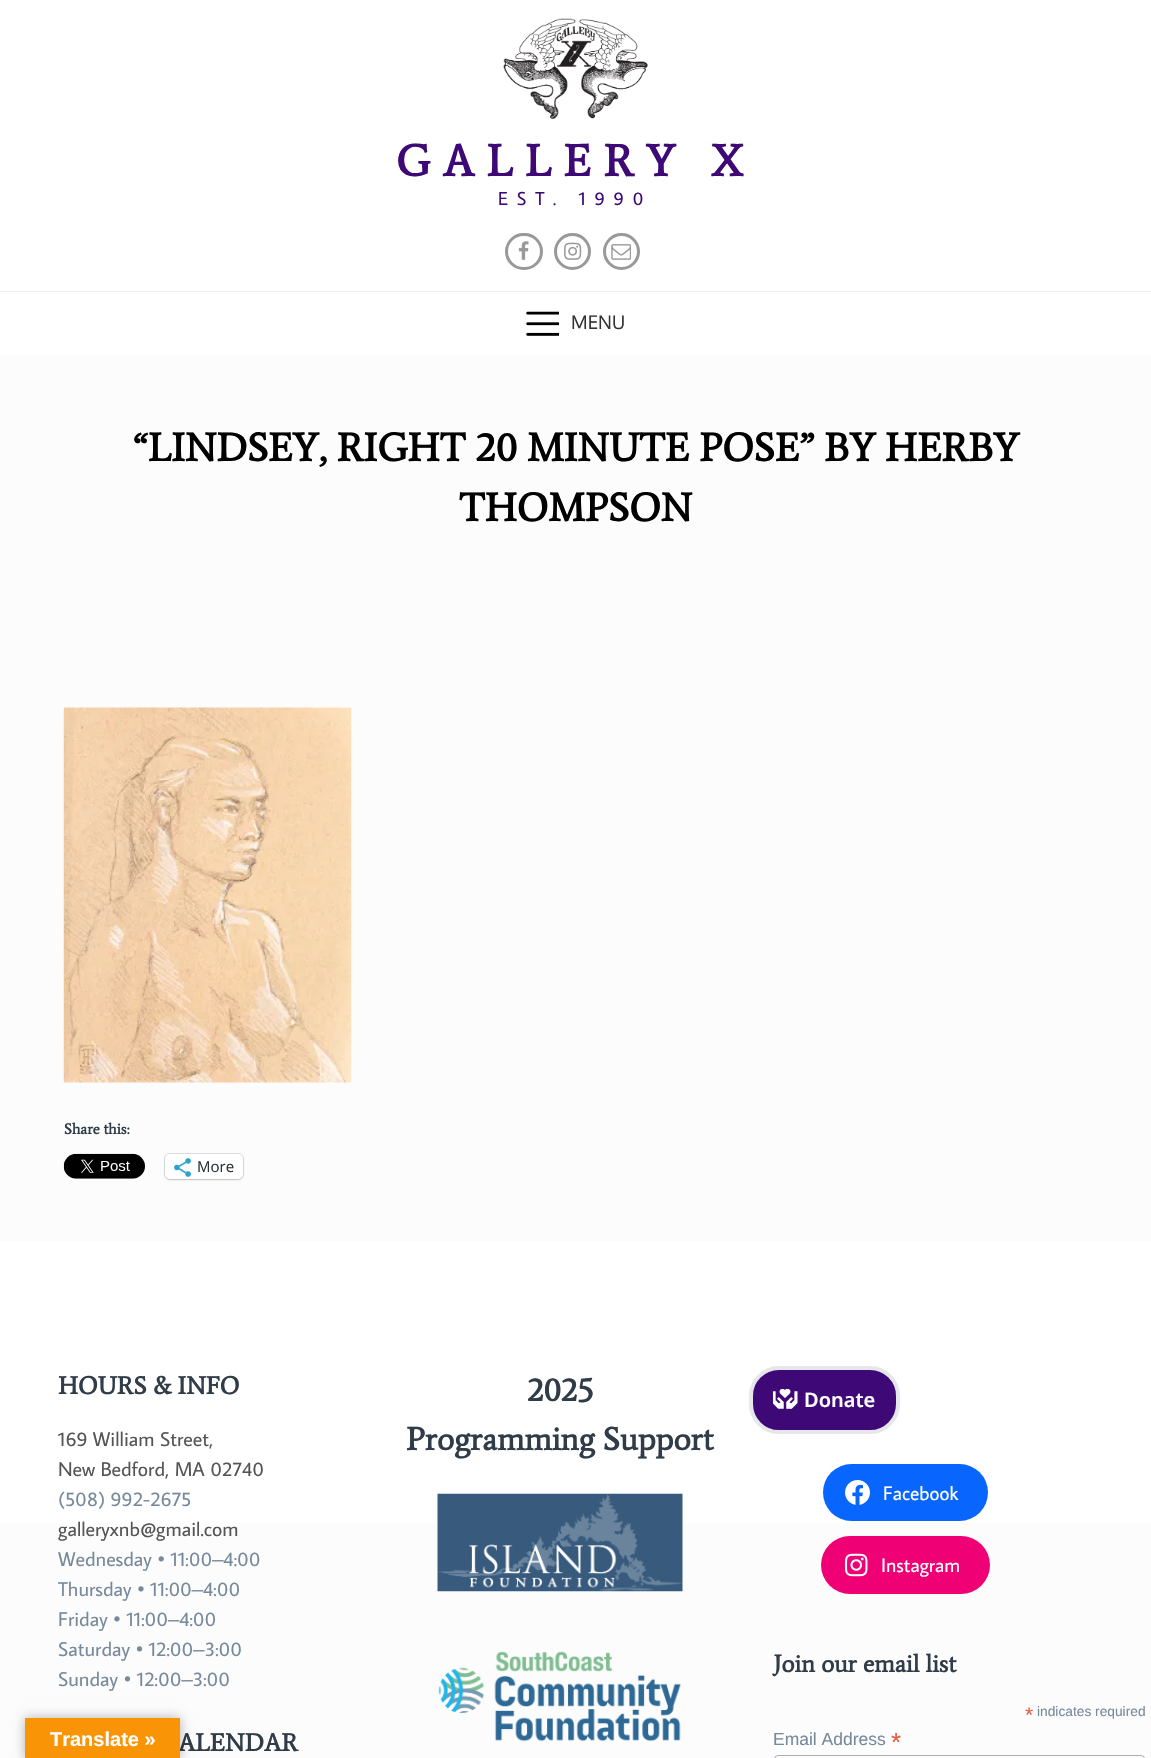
void draw(SkCanvas* canvas) {
    SkPaint paint;
    paint.setAntiAlias(true);
    auto face = [&](const char* family, int weight, float size, bool italic = false) {
        SkFontStyle style(weight, SkFontStyle::kNormal_Width,
            italic ? SkFontStyle::kItalic_Slant : SkFontStyle::kUpright_Slant);
        SkFont result(fontMgr->matchFamilyStyle(family, style), size);
        result.setSubpixel(true);
        return result;
    };
    auto write = [&](const char* s, float x, float y, const SkFont& font, SkColor color) {
        SkPaint ink(SkColor4f::FromColor(color));
        ink.setAntiAlias(true);
        canvas->drawString(s, x, y, font, ink);
    };
    auto writeSpaced = [&](const char* s, float x, float y, const SkFont& font, const SkPaint& ink, float letter, float word) {
        std::vector<SkGlyphID> glyphs(font.countText(s, strlen(s), SkTextEncoding::kUTF8));
        std::vector<float> xs(glyphs.size());
        font.textToGlyphs(s, strlen(s), SkTextEncoding::kUTF8, glyphs);
        font.getXPos(glyphs, xs, x);
        float extra = 0;
        for (size_t i = 0; i < glyphs.size(); i++) {
            xs[i] += extra;
            extra += letter + word * (glyphs[i] == font.unicharToGlyph(' '));
        }
        canvas->drawTextBlob(SkTextBlob::MakeFromPosHGlyphs(glyphs, xs, y, font), 0, 0, ink);
    };
    auto block = [&](float x, float y, float w, float h, SkColor color) {
        SkPaint ink(SkColor4f::FromColor(color));
        ink.setAntiAlias(true);
        canvas->drawRect(SkRect::MakeXYWH(x, y, w, h), ink);
    };
    auto card = [&](float x, float y, float w, float h, float radius, SkColor color) {
        SkPaint ink(SkColor4f::FromColor(color));
        ink.setAntiAlias(true);
        canvas->drawRoundRect(SkRect::MakeXYWH(x, y, w, h), radius, radius, ink);
    };
    auto paste = [&](const char* path, float x, float y, float w, float h) {
        auto image = SkImages::DeferredFromEncodedData(SkData::MakeFromFileName(path));
        canvas->drawImageRect(image, SkRect::MakeXYWH(x, y, w, h), SkSamplingOptions());
    };
    canvas->clear(SkColorSetRGB(252, 252, 252));
    block(0, 0, 1151, 355, SK_ColorWHITE);
    paste("pic1.png", 503, 18, 145, 101);
    auto kFont1 = face("Average", 700, 45);
    paint.setColor(SkColorSetRGB(62, 9, 119));
    writeSpaced("GALLERY X", 396, 176, kFont1, paint, 12.5f, 0);
    auto kFont2 = face("Average Sans", 400, 18.75f);
    writeSpaced("EST. 1990", 498, 205, kFont2, paint, 8.75f, 0);
    paint.setStyle(SkPaint::kStroke_Style);
    paint.setStrokeWidth(3);
    paint.setColor(SkColorSetRGB(153, 153, 153));
    canvas->drawRoundRect(SkRect::MakeXYWH(506.5f, 234.5f, 35, 34), 17, 17, paint);
    paste("pic2.png", 518, 241, 11, 19);
    canvas->drawCircle(572.5f, 251.5f, 17, paint);
    paste("pic3.png", 564, 242, 18, 18);
    canvas->drawCircle(621.5f, 251.5f, 17, paint);
    paste("pic4.png", 611, 244, 20, 16);
    block(0, 291, 1151, 1, SkColorSetRGB(238, 238, 238));
    paste("pic5.png", 526, 311, 33, 25);
    auto kFont3 = face("Oxygen", 400, 18.75f);
    write("MENU", 571, 329, kFont3, SkColorSetRGB(51, 51, 51));
    auto kFont4 = face("Average", 700, 40);
    write("“LINDSEY, RIGHT 20 MINUTE POSE” BY HERBY", 133, 461, kFont4, SK_ColorBLACK);
    write("THOMPSON", 459, 521, kFont4, SK_ColorBLACK);
    paste("pic6.png", 63, 707, 289, 376);
    auto kFont5 = face("Average", 700, 15);
    write("Share this:", 64, 1134, kFont5, SkColorSetRGB(48, 60, 72));
    paste("pic7.png", 63, 1153, 82, 26);
    paint.setStrokeWidth(1);
    paint.setColor(SkColorSetRGB(222, 222, 222));
    canvas->drawRoundRect(SkRect::MakeXYWH(164.5f, 1153.5f, 79, 26), 5.5f, 5.5f, paint);
    paint.setStyle(SkPaint::kFill_Style);
    paint.setColor(SkColorSetARGB(31, 0, 0, 0));
    paint.setMaskFilter(SkMaskFilter::MakeBlur(kNormal_SkBlurStyle, 1));
    canvas->drawRoundRect(SkRect::MakeXYWH(165, 1155, 78, 25), 5, 5, paint);
    paint.setMaskFilter(nullptr);
    card(165, 1154, 78, 25, 5, SK_ColorWHITE);
    paste("pic8.png", 174, 1158, 17, 19);
    auto kFont6 = face("Open Sans", 400, 15);
    write("More", 197, 1172, kFont6, SkColorSetRGB(44, 51, 56));
    {
        const SkColor colors[] = {SK_ColorWHITE, SkColorSetRGB(254, 254, 254)};
        const float stops[] = {0, 1};
        const SkPoint ends[] = {{576, 1179}, {576, 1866}};
        paint.setShader(SkGradientShader::MakeLinear(ends, colors, stops, 2, SkTileMode::kClamp));
        paint.setAlpha(255);
    }
    canvas->drawRect(SkRect::MakeXYWH(0, 1241, 1151, 282), paint);
    auto kFont7 = face("Average", 700, 25);
    write("HOURS & INFO", 58, 1394, kFont7, SkColorSetRGB(48, 60, 72));
    auto kFont8 = face("Average Sans", 400, 20);
    write("169 William Street,", 58, 1446, kFont8, SkColorSetRGB(85, 85, 85));
    write("New Bedford, MA 02740", 58, 1476, kFont8, SkColorSetRGB(85, 85, 85));
    write("(508) 992-2675", 58, 1506, kFont8, SkColorSetRGB(119, 138, 156));
    write("galleryxnb@gmail.com", 58, 1536, kFont8, SkColorSetRGB(85, 85, 85));
    write("Wednesday • 11:00–4:00", 58, 1566, kFont8, SkColorSetRGB(119, 138, 156));
    write("Thursday • 11:00–4:00", 58, 1596, kFont8, SkColorSetRGB(119, 138, 156));
    write("Friday • 11:00–4:00", 58, 1626, kFont8, SkColorSetRGB(119, 138, 156));
    write("Saturday • 12:00–3:00", 58, 1656, kFont8, SkColorSetRGB(119, 138, 156));
    write("Sunday • 12:00–3:00", 58, 1686, kFont8, SkColorSetRGB(119, 138, 156));
    write("ALENDAR", 178, 1751, kFont7, SkColorSetRGB(48, 60, 72));
    auto kFont9 = face("Average", 700, 32.5f);
    write("2025", 527, 1401, kFont9, SkColorSetRGB(48, 60, 72));
    write("Programming Support", 406, 1450, kFont9, SkColorSetRGB(48, 60, 72));
    paste("pic9.png", 437, 1493, 246, 99);
    paste("pic10.png", 438, 1651, 243, 91);
    paint.setShader(nullptr);
    paint.setColor(SkColorSetRGB(62, 9, 119));
    canvas->drawRoundRect(SkRect::MakeXYWH(751, 1368, 147, 64), 28, 28, paint);
    paint.setStyle(SkPaint::kStroke_Style);
    paint.setStrokeWidth(4);
    paint.setColor(SkColorSetRGB(229, 231, 235));
    canvas->drawRoundRect(SkRect::MakeXYWH(751, 1368, 147, 64), 28, 28, paint);
    paste("pic11.png", 773, 1389, 25, 20);
    auto kFont10 = face("Noto Sans", 600, 20);
    write("Donate", 804, 1407, kFont10, SK_ColorWHITE);
    card(823, 1464, 165, 57, 28.5f, SkColorSetRGB(8, 102, 255));
    paste("pic12.png", 845, 1480, 25, 25);
    auto kFont11 = face("Average Sans", 400, 19.5f);
    write("Facebook", 883, 1500, kFont11, SK_ColorWHITE);
    card(821, 1536, 169, 58, 29, SkColorSetRGB(240, 0, 117));
    paste("pic13.png", 845, 1553, 23, 24);
    write("Instagram", 881, 1572, kFont11, SK_ColorWHITE);
    auto kFont12 = face("Average", 700, 24.5f);
    write("Join our email list", 773, 1672, kFont12, SkColorSetRGB(48, 60, 72));
    auto kFont13 = face("Liberation Sans", 400, 21);
    write("*", 1025, 1722, kFont13, SkColorSetRGB(232, 92, 65));
    auto kFont14 = face("Liberation Sans", 400, 13.75f);
    write("indicates required", 1037, 1716, kFont14, SkColorSetRGB(119, 138, 156));
    auto kFont15 = face("Liberation Sans", 400, 17.5f);
    write("Email Address", 773, 1745, kFont15, SkColorSetRGB(119, 138, 156));
    auto kFont16 = face("Liberation Sans", 400, 26);
    write("*", 891, 1751, kFont16, SkColorSetRGB(232, 92, 65));
    paint.setStrokeWidth(1);
    paint.setColor(SkColorSetRGB(171, 176, 178));
    canvas->drawRoundRect(SkRect::MakeXYWH(774.5f, 1755.5f, 370, 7), 3.5f, 3.5f, paint);
    paint.setStyle(SkPaint::kFill_Style);
    paint.setColor(SkColorSetARGB(77, 0, 0, 0));
    paint.setMaskFilter(SkMaskFilter::MakeBlur(kNormal_SkBlurStyle, 5.5f));
    canvas->drawRect(SkRect::MakeXYWH(25, 1718, 155, 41), paint);
    paint.setMaskFilter(nullptr);
    block(25, 1718, 155, 40, SkColorSetRGB(248, 148, 6));
    auto kFont17 = face("Liberation Sans", 700, 20);
    write("Translate »", 50, 1746, kFont17, SK_ColorWHITE);
}
